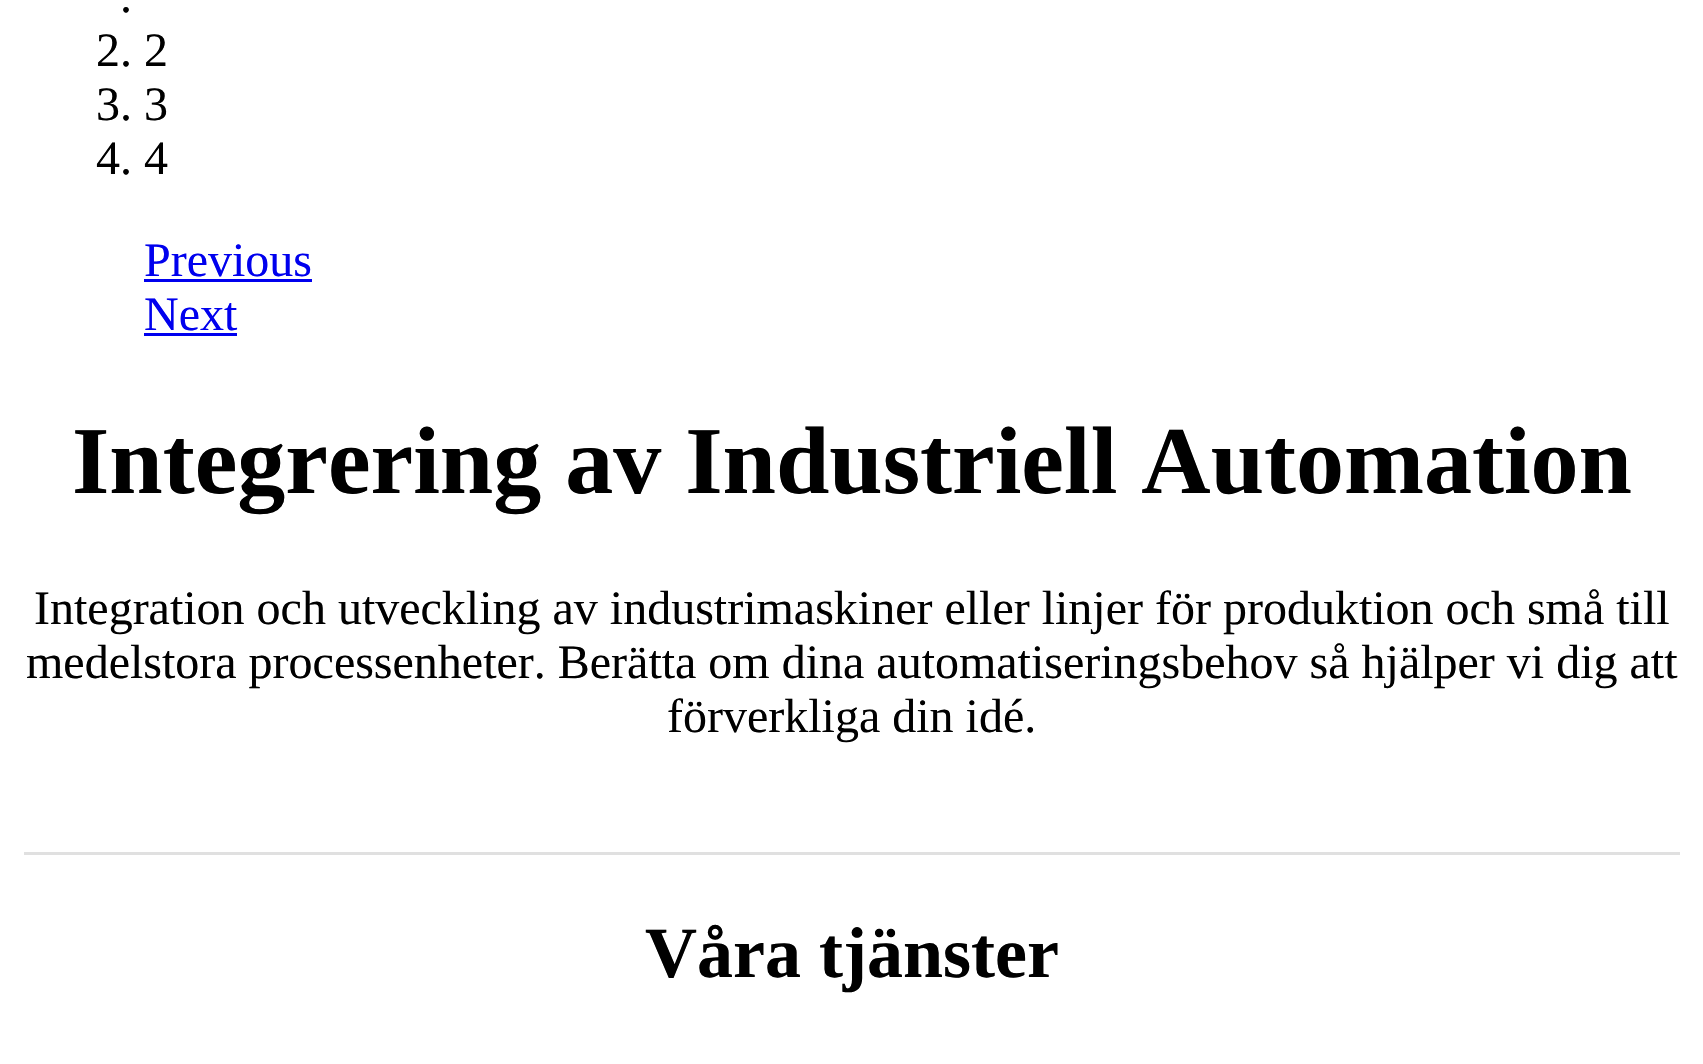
void draw(SkCanvas* canvas) {
    SkPaint paint;
    paint.setAntiAlias(true);
    auto face = [&](const char* family, int weight, float size, bool italic = false) {
        SkFontStyle style(weight, SkFontStyle::kNormal_Width,
            italic ? SkFontStyle::kItalic_Slant : SkFontStyle::kUpright_Slant);
        SkFont result(fontMgr->matchFamilyStyle(family, style), size);
        result.setSubpixel(true);
        return result;
    };
    auto write = [&](const char* s, float x, float y, const SkFont& font, SkColor color) {
        SkPaint ink(SkColor4f::FromColor(color));
        ink.setAntiAlias(true);
        canvas->drawString(s, x, y, font, ink);
    };
    auto block = [&](float x, float y, float w, float h, SkColor color) {
        SkPaint ink(SkColor4f::FromColor(color));
        ink.setAntiAlias(true);
        canvas->drawRect(SkRect::MakeXYWH(x, y, w, h), ink);
    };
    canvas->clear(SK_ColorWHITE);
    auto kFont1 = face("Liberation Serif", 400, 48);
    write(".", 120, 12, kFont1, SK_ColorBLACK);
    write("2. 2", 96, 66, kFont1, SK_ColorBLACK);
    write("3. 3", 96, 120, kFont1, SK_ColorBLACK);
    write("4. 4", 96, 174, kFont1, SK_ColorBLACK);
    write("Previous", 144, 276, kFont1, SkColorSetRGB(0, 0, 238));
    block(144, 279, 168, 3, SkColorSetRGB(0, 0, 238));
    write("Next", 144, 330, kFont1, SkColorSetRGB(0, 0, 238));
    block(144, 333, 93, 3, SkColorSetRGB(0, 0, 238));
    auto kFont2 = face("Liberation Serif", 700, 96);
    write("Integrering av Industriell Automation", 72, 493, kFont2, SK_ColorBLACK);
    block(24, 852, 1656, 3, SkColorSetRGB(224, 224, 224));
    write("Integration och utveckling av industrimaskiner eller linjer för produktion och små till", 34, 624, kFont1, SK_ColorBLACK);
    write("medelstora processenheter. Berätta om dina automatiseringsbehov så hjälper vi dig att", 26, 678, kFont1, SK_ColorBLACK);
    write("förverkliga din idé.", 667, 732, kFont1, SK_ColorBLACK);
    auto kFont3 = face("Liberation Serif", 700, 72);
    write("Våra tjänster", 645, 977, kFont3, SK_ColorBLACK);
}
